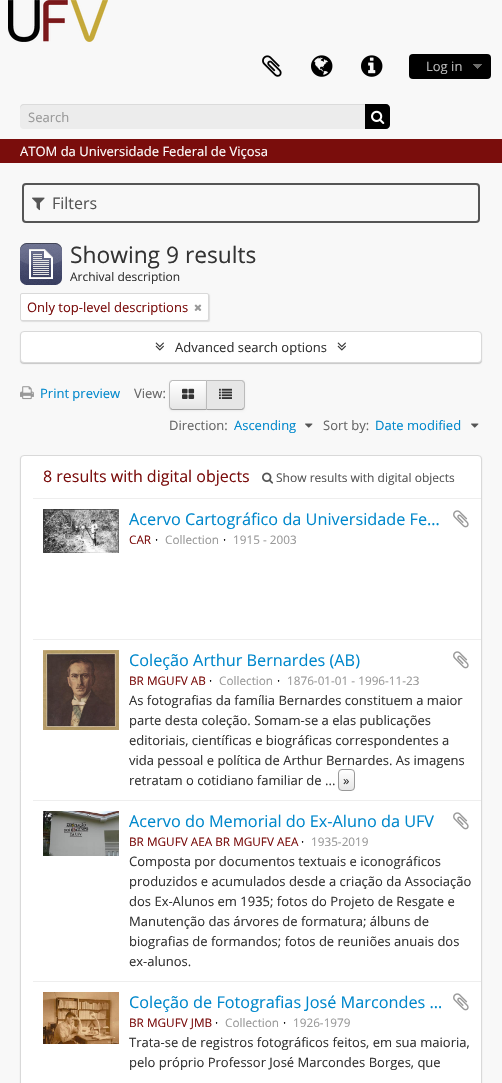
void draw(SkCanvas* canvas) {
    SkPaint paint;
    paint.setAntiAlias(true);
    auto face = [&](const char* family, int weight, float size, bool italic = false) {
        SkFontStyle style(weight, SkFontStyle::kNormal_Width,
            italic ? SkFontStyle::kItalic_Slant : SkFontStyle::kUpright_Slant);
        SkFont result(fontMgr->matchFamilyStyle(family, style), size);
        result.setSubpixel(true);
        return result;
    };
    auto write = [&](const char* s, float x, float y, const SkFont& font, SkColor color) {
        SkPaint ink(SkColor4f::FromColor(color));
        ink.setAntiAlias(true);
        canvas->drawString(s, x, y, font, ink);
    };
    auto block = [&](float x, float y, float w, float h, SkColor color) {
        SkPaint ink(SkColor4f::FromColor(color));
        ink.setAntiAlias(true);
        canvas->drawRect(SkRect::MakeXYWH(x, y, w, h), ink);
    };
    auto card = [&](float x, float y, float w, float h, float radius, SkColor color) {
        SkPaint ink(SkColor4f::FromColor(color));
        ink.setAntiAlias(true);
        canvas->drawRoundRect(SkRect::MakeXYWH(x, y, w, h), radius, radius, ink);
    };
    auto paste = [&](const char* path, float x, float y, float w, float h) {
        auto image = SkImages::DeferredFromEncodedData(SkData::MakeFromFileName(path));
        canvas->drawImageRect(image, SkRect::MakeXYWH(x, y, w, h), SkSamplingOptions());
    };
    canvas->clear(SkColorSetRGB(248, 248, 248));
    paste("pic1.png", 8, 0, 100, 42);
    paste("pic2.png", 262, 55, 20, 22);
    paste("pic3.png", 311, 55, 22, 22);
    paste("pic4.png", 361, 55, 22, 22);
    card(409, 54, 82, 25, 4, SK_ColorBLACK);
    paste("pic5.png", 473, 64, 9, 5);
    auto kFont1 = face("Open Sans", 400, 13);
    write("Log in", 426, 71, kFont1, SkColorSetRGB(187, 187, 187));
    card(20, 104, 370, 25, 4, SkColorSetRGB(236, 236, 236));
    paint.setColor(SkColorSetARGB(18, 0, 0, 0));
    canvas->drawPath(SkPathBuilder().moveTo(24, 105).lineTo(386, 105).cubicTo(388, 105, 390, 107, 390, 109).cubicTo(390, 106, 389, 104, 386, 104).lineTo(24, 104).cubicTo(21, 104, 20, 106, 20, 109).cubicTo(20, 107, 22, 105, 24, 105).close().detach(), paint);
    write("Search", 28, 122, kFont1, SkColorSetRGB(153, 153, 153));
    paint.setColor(SK_ColorBLACK);
    canvas->drawPath(SkPathBuilder().moveTo(365, 104).lineTo(386, 104).cubicTo(388, 104, 390, 106, 390, 108).lineTo(390, 125).cubicTo(390, 127, 388, 129, 386, 129).lineTo(365, 129).close().detach(), paint);
    paste("pic6.png", 371, 110, 14, 14);
    block(0, 139, 502, 24, SkColorSetRGB(122, 13, 12));
    write("ATOM da Universidade Federal de Viçosa", 20, 156, kFont1, SK_ColorWHITE);
    paint.setStyle(SkPaint::kStroke_Style);
    paint.setStrokeWidth(2);
    paint.setColor(SkColorSetRGB(85, 85, 85));
    canvas->drawRoundRect(SkRect::MakeXYWH(23, 184, 456, 38), 3, 3, paint);
    paste("pic7.png", 32, 197, 13, 14);
    auto kFont2 = face("Open Sans", 400, 16);
    write("Filters", 52, 209, kFont2, SkColorSetRGB(85, 85, 85));
    paste("pic8.png", 20, 243, 42, 42);
    auto kFont3 = face("Open Sans", 400, 22.75f);
    write("Showing 9 results", 70, 263, kFont3, SkColorSetRGB(51, 51, 51));
    auto kFont4 = face("Open Sans", 400, 12);
    write("Archival description", 70, 281, kFont4, SkColorSetRGB(51, 51, 51));
    paint.setStyle(SkPaint::kFill_Style);
    paint.setColor(SkColorSetARGB(26, 0, 0, 0));
    paint.setMaskFilter(SkMaskFilter::MakeBlur(kNormal_SkBlurStyle, 0.5f));
    canvas->drawRoundRect(SkRect::MakeXYWH(21, 294, 189, 28), 2, 2, paint);
    paint.setMaskFilter(nullptr);
    paint.setColor(SK_ColorWHITE);
    canvas->drawRoundRect(SkRect::MakeXYWH(20.5f, 293.5f, 188, 27), 1.5f, 1.5f, paint);
    paint.setStyle(SkPaint::kStroke_Style);
    paint.setStrokeWidth(1);
    paint.setColor(SkColorSetRGB(217, 217, 217));
    canvas->drawRoundRect(SkRect::MakeXYWH(20.5f, 293.5f, 188, 27), 1.5f, 1.5f, paint);
    write("Only top-level descriptions", 27, 312, kFont1, SkColorSetRGB(122, 13, 12));
    paste("pic9.png", 194, 304, 8, 7);
    paint.setStyle(SkPaint::kFill_Style);
    paint.setColor(SkColorSetARGB(51, 0, 0, 0));
    paint.setMaskFilter(SkMaskFilter::MakeBlur(kNormal_SkBlurStyle, 0.5f));
    canvas->drawRoundRect(SkRect::MakeXYWH(20, 332, 462, 32), 4, 4, paint);
    paint.setMaskFilter(nullptr);
    paint.setColor(SK_ColorWHITE);
    canvas->drawRoundRect(SkRect::MakeXYWH(20.5f, 331.5f, 461, 31), 3.5f, 3.5f, paint);
    paint.setStyle(SkPaint::kStroke_Style);
    paint.setColor(SkColorSetRGB(217, 217, 217));
    canvas->drawRoundRect(SkRect::MakeXYWH(20.5f, 331.5f, 461, 31), 3.5f, 3.5f, paint);
    paste("pic10.png", 155, 342, 9, 9);
    write("Advanced search options", 175, 352, kFont1, SkColorSetRGB(51, 51, 51));
    paste("pic10.png", 337, 342, 9, 9);
    paste("pic11.png", 20, 386, 14, 14);
    write("Print preview", 40, 398, kFont1, SkColorSetRGB(0, 136, 204));
    write("View:", 134, 398, kFont1, SkColorSetRGB(102, 102, 102));
    paint.setStyle(SkPaint::kFill_Style);
    paint.setColor(SkColorSetARGB(13, 0, 0, 0));
    paint.setMaskFilter(SkMaskFilter::MakeBlur(kNormal_SkBlurStyle, 1));
    canvas->drawRoundRect(SkRect::MakeXYWH(169, 381, 38, 30), 4, 4, paint);
    paint.setMaskFilter(nullptr);
    canvas->save();
    canvas->clipPath(SkPathBuilder().moveTo(173, 380).lineTo(207, 380).lineTo(207, 410).lineTo(173, 410).cubicTo(171, 410, 169, 408, 169, 406).lineTo(169, 384).cubicTo(169, 382, 171, 380, 173, 380).close().detach(), true);
    {
        const SkColor colors[] = {SK_ColorWHITE, SkColorSetRGB(230, 230, 230)};
        const float stops[] = {0, 1};
        const SkPoint ends[] = {{188, 381}, {188, 409}};
        paint.setShader(SkGradientShader::MakeLinear(ends, colors, stops, 2, SkTileMode::kClamp));
        paint.setAlpha(255);
    }
    canvas->drawRect(SkRect::MakeXYWH(169, 381, 37, 28), paint);
    canvas->restore();
    paint.setShader(nullptr);
    paint.setColor(SkColorSetRGB(187, 187, 187));
    canvas->drawPath(SkPathBuilder().moveTo(173, 380).cubicTo(172, 380, 171, 380.5f, 170, 381).lineTo(171, 382).cubicTo(171.5f, 381.5f, 172, 381, 173, 381).lineTo(206, 381).lineTo(207, 380).close().detach(), paint);
    paint.setColor(SkColorSetRGB(162, 162, 162));
    canvas->drawPath(SkPathBuilder().moveTo(207, 410).lineTo(206, 409).lineTo(173, 409).cubicTo(172, 409, 171.5f, 408.5f, 171, 408).lineTo(170, 409).cubicTo(171, 409.5f, 172, 410, 173, 410).close().detach(), paint);
    paint.setColor(SkColorSetRGB(187, 187, 187));
    canvas->drawPath(SkPathBuilder().moveTo(169, 384).lineTo(169, 406).cubicTo(169, 407, 169.5f, 408, 170, 409).lineTo(171, 408).cubicTo(170.5f, 407.5f, 170, 407, 170, 406).lineTo(170, 384).cubicTo(170, 383, 170.5f, 382.5f, 171, 382).lineTo(170, 381).cubicTo(169.5f, 382, 169, 383, 169, 384).close().detach(), paint);
    paste("pic12.png", 182, 388, 13, 11);
    paint.setColor(SkColorSetARGB(13, 0, 0, 0));
    paint.setMaskFilter(SkMaskFilter::MakeBlur(kNormal_SkBlurStyle, 1));
    canvas->drawRoundRect(SkRect::MakeXYWH(206, 381, 39, 30), 4, 4, paint);
    paint.setMaskFilter(nullptr);
    paint.setColor(SkColorSetRGB(230, 230, 230));
    canvas->drawPath(SkPathBuilder().moveTo(206, 380).lineTo(241, 380).cubicTo(243, 380, 245, 382, 245, 384).lineTo(245, 406).cubicTo(245, 408, 243, 410, 241, 410).lineTo(206, 410).close().detach(), paint);
    paint.setColor(SkColorSetRGB(187, 187, 187));
    canvas->drawPath(SkPathBuilder().moveTo(206, 380).lineTo(207, 381).lineTo(241, 381).cubicTo(242, 381, 242.5f, 381.5f, 243, 382).lineTo(244, 381).cubicTo(243, 380.5f, 242, 380, 241, 380).close().detach(), paint);
    canvas->drawPath(SkPathBuilder().moveTo(245, 406).lineTo(245, 384).cubicTo(245, 383, 244.5f, 382, 244, 381).lineTo(243, 382).cubicTo(243.5f, 382.5f, 244, 383, 244, 384).lineTo(244, 406).cubicTo(244, 407, 243.5f, 407.5f, 243, 408).lineTo(244, 409).cubicTo(244.5f, 408, 245, 407, 245, 406).close().detach(), paint);
    paint.setColor(SkColorSetRGB(162, 162, 162));
    canvas->drawPath(SkPathBuilder().moveTo(241, 410).cubicTo(242, 410, 243, 409.5f, 244, 409).lineTo(243, 408).cubicTo(242.5f, 408.5f, 242, 409, 241, 409).lineTo(207, 409).lineTo(206, 410).close().detach(), paint);
    paint.setColor(SkColorSetRGB(187, 187, 187));
    canvas->drawPath(SkPathBuilder().moveTo(206, 380).lineTo(206, 410).lineTo(207, 409).lineTo(207, 381).close().detach(), paint);
    paste("pic13.png", 219, 388, 13, 11);
    write("Direction:", 169, 430, kFont1, SkColorSetRGB(102, 102, 102));
    write("Ascending", 234, 430, kFont1, SkColorSetRGB(0, 136, 204));
    paste("pic14.png", 305, 423, 8, 5);
    write("Sort by:", 323, 430, kFont1, SkColorSetRGB(102, 102, 102));
    write("Date modified", 375, 430, kFont1, SkColorSetRGB(0, 136, 204));
    paste("pic14.png", 471, 423, 8, 5);
    paint.setColor(SkColorSetARGB(51, 0, 0, 0));
    paint.setMaskFilter(SkMaskFilter::MakeBlur(kNormal_SkBlurStyle, 0.5f));
    canvas->drawRoundRect(SkRect::MakeXYWH(20, 456, 462, 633), 4, 4, paint);
    paint.setMaskFilter(nullptr);
    paint.setColor(SK_ColorWHITE);
    canvas->drawRoundRect(SkRect::MakeXYWH(20.5f, 455.5f, 461, 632), 3.5f, 3.5f, paint);
    paint.setStyle(SkPaint::kStroke_Style);
    paint.setColor(SkColorSetRGB(217, 217, 217));
    canvas->drawRoundRect(SkRect::MakeXYWH(20.5f, 455.5f, 461, 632), 3.5f, 3.5f, paint);
    block(33, 498, 448, 1, SkColorSetRGB(238, 238, 238));
    write("8 results with digital objects", 43, 482, kFont2, SkColorSetRGB(122, 13, 12));
    paste("pic15.png", 262, 472, 12, 12);
    write("Show results with digital objects", 276, 482, kFont4, SkColorSetRGB(85, 85, 85));
    block(33, 639, 448, 1, SkColorSetRGB(238, 238, 238));
    paste("pic16.png", 43, 509, 76, 44);
    auto kFont5 = face("Open Sans", 400, 16.25f);
    write("Acervo Cartográfico da Universidade Fe…", 129, 525, kFont5, SkColorSetRGB(0, 136, 204));
    paste("pic17.png", 453, 510, 16, 18);
    auto kFont6 = face("Open Sans", 400, 11.75f);
    write("CAR", 129, 544, kFont6, SkColorSetRGB(122, 13, 12));
    write("·", 155, 544, kFont6, SK_ColorBLACK);
    write("Collection", 165, 544, kFont6, SkColorSetRGB(153, 153, 153));
    write("·", 223, 544, kFont6, SK_ColorBLACK);
    write("1915 - 2003", 233, 544, kFont6, SkColorSetRGB(153, 153, 153));
    block(33, 800, 448, 1, SkColorSetRGB(238, 238, 238));
    paste("pic18.png", 43, 650, 76, 80);
    write("Coleção Arthur Bernardes (AB)", 129, 666, kFont5, SkColorSetRGB(0, 136, 204));
    paste("pic17.png", 453, 651, 16, 18);
    write("BR MGUFV AB", 129, 685, kFont6, SkColorSetRGB(122, 13, 12));
    write("·", 209, 685, kFont6, SK_ColorBLACK);
    write("Collection", 219, 685, kFont6, SkColorSetRGB(153, 153, 153));
    write("·", 277, 685, kFont6, SK_ColorBLACK);
    write("1876-01-01 - 1996-11-23", 287, 685, kFont6, SkColorSetRGB(153, 153, 153));
    write("As fotografias da família Bernardes constituem a maior", 129, 705, kFont1, SkColorSetRGB(51, 51, 51));
    write("parte desta coleção. Somam-se a elas publicações", 129, 725, kFont1, SkColorSetRGB(51, 51, 51));
    write("editoriais, científicas e biográficas correspondentes a", 129, 745, kFont1, SkColorSetRGB(51, 51, 51));
    write("vida pessoal e política de Arthur Bernardes. As imagens", 129, 765, kFont1, SkColorSetRGB(51, 51, 51));
    write("retratam o cotidiano familiar de ...", 129, 785, kFont1, SkColorSetRGB(51, 51, 51));
    canvas->save();
    canvas->clipPath(SkPathBuilder().moveTo(342, 769).lineTo(351, 769).cubicTo(353, 769, 355, 771, 355, 773).lineTo(355, 787).cubicTo(355, 789, 353, 791, 351, 791).lineTo(342, 791).cubicTo(340, 791, 338, 789, 338, 787).lineTo(338, 773).cubicTo(338, 771, 340, 769, 342, 769).close().detach(), true);
    paint.setStyle(SkPaint::kFill_Style);
    {
        const SkColor colors[] = {SK_ColorWHITE, SkColorSetRGB(230, 230, 230)};
        const float stops[] = {0, 1};
        const SkPoint ends[] = {{347, 770}, {347, 790}};
        paint.setShader(SkGradientShader::MakeLinear(ends, colors, stops, 2, SkTileMode::kClamp));
        paint.setAlpha(255);
    }
    canvas->drawRect(SkRect::MakeXYWH(338, 770, 17, 20), paint);
    canvas->restore();
    paint.setStyle(SkPaint::kStroke_Style);
    paint.setShader(nullptr);
    paint.setColor(SkColorSetRGB(153, 153, 153));
    canvas->drawRoundRect(SkRect::MakeXYWH(338.5f, 769.5f, 16, 21), 3.5f, 3.5f, paint);
    write("»", 343, 785, kFont1, SkColorSetRGB(51, 51, 51));
    block(33, 981, 448, 1, SkColorSetRGB(238, 238, 238));
    paste("pic19.png", 43, 811, 76, 45);
    write("Acervo do Memorial do Ex-Aluno da UFV", 129, 827, kFont5, SkColorSetRGB(0, 136, 204));
    paste("pic17.png", 453, 812, 16, 18);
    write("BR MGUFV AEA BR MGUFV AEA", 129, 846, kFont6, SkColorSetRGB(122, 13, 12));
    write("·", 301, 846, kFont6, SK_ColorBLACK);
    write("1935-2019", 311, 846, kFont6, SkColorSetRGB(153, 153, 153));
    write("Composta por documentos textuais e iconográficos", 129, 866, kFont1, SkColorSetRGB(51, 51, 51));
    write("produzidos e acumulados desde a criação da Associação", 129, 886, kFont1, SkColorSetRGB(51, 51, 51));
    write("dos Ex-Alunos em 1935; fotos do Projeto de Resgate e", 129, 906, kFont1, SkColorSetRGB(51, 51, 51));
    write("Manutenção das árvores de formatura; álbuns de", 129, 926, kFont1, SkColorSetRGB(51, 51, 51));
    write("biografias de formandos; fotos de reuniões anuais dos", 129, 946, kFont1, SkColorSetRGB(51, 51, 51));
    write("ex-alunos.", 129, 966, kFont1, SkColorSetRGB(51, 51, 51));
    paste("pic20.png", 43, 992, 76, 52);
    write("Coleção de Fotografias José Marcondes …", 129, 1008, kFont5, SkColorSetRGB(0, 136, 204));
    paste("pic17.png", 453, 993, 16, 18);
    write("BR MGUFV JMB", 129, 1027, kFont6, SkColorSetRGB(122, 13, 12));
    write("·", 215, 1027, kFont6, SK_ColorBLACK);
    write("Collection", 225, 1027, kFont6, SkColorSetRGB(153, 153, 153));
    write("·", 283, 1027, kFont6, SK_ColorBLACK);
    write("1926-1979", 293, 1027, kFont6, SkColorSetRGB(153, 153, 153));
    write("Trata-se de registros fotográficos feitos, em sua maioria,", 129, 1047, kFont1, SkColorSetRGB(51, 51, 51));
    write("pelo próprio Professor José Marcondes Borges, que", 129, 1067, kFont1, SkColorSetRGB(51, 51, 51));
}
